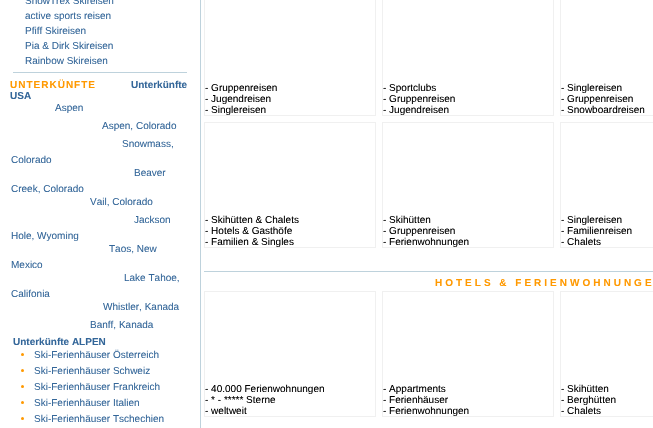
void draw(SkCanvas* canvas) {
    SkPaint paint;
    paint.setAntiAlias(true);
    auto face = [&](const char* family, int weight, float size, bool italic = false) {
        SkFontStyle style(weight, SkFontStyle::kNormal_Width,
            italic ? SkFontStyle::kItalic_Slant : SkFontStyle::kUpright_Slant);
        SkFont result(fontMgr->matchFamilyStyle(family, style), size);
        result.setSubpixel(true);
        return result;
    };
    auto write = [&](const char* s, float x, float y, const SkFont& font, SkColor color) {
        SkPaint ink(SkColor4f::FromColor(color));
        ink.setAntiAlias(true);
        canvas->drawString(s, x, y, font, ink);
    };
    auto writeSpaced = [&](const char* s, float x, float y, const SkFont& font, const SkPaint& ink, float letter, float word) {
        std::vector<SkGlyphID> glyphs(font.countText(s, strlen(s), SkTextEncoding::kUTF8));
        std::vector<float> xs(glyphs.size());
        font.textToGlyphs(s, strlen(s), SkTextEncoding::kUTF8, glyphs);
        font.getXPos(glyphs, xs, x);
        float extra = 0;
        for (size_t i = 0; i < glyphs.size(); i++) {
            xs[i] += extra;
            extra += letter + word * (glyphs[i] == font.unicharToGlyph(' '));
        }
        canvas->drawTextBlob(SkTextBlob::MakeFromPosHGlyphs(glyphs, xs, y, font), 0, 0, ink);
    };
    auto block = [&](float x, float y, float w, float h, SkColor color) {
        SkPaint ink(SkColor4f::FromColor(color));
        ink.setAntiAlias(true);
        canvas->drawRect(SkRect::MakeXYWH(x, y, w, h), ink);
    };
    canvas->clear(SK_ColorWHITE);
    block(200, 0, 1, 428, SkColorSetRGB(190, 210, 220));
    auto kFont1 = face("Liberation Sans", 400, 10);
    write("SnowTrex Skireisen", 25, 4, kFont1, SkColorSetRGB(51, 102, 153));
    write("active sports reisen", 25, 19, kFont1, SkColorSetRGB(51, 102, 153));
    write("Pfiff Skireisen", 25, 34, kFont1, SkColorSetRGB(51, 102, 153));
    write("Pia & Dirk Skireisen", 25, 49, kFont1, SkColorSetRGB(51, 102, 153));
    write("Rainbow Skireisen", 25, 64, kFont1, SkColorSetRGB(51, 102, 153));
    block(13, 72, 174, 1, SkColorSetRGB(190, 210, 220));
    auto kFont2 = face("Liberation Sans", 700, 10);
    paint.setColor(SkColorSetRGB(255, 153, 0));
    writeSpaced("UNTERKÜNFTE", 10, 88, kFont2, paint, 1, 0);
    write("Unterkünfte", 131, 88, kFont2, SkColorSetRGB(51, 102, 153));
    write("USA", 10, 99, kFont2, SkColorSetRGB(51, 102, 153));
    write("Aspen", 55, 111, kFont1, SkColorSetRGB(51, 102, 153));
    write("Aspen, Colorado", 102, 129, kFont1, SkColorSetRGB(51, 102, 153));
    write("Snowmass,", 122, 147, kFont1, SkColorSetRGB(51, 102, 153));
    write("Colorado", 11, 163, kFont1, SkColorSetRGB(51, 102, 153));
    write("Beaver", 134, 176, kFont1, SkColorSetRGB(51, 102, 153));
    write("Creek, Colorado", 11, 192, kFont1, SkColorSetRGB(51, 102, 153));
    write("Vail, Colorado", 90, 205, kFont1, SkColorSetRGB(51, 102, 153));
    write("Jackson", 134, 223, kFont1, SkColorSetRGB(51, 102, 153));
    write("Hole, Wyoming", 11, 239, kFont1, SkColorSetRGB(51, 102, 153));
    write("Taos, New", 109, 252, kFont1, SkColorSetRGB(51, 102, 153));
    write("Mexico", 11, 268, kFont1, SkColorSetRGB(51, 102, 153));
    write("Lake Tahoe,", 124, 281, kFont1, SkColorSetRGB(51, 102, 153));
    write("Califonia", 11, 297, kFont1, SkColorSetRGB(51, 102, 153));
    write("Whistler, Kanada", 103, 310, kFont1, SkColorSetRGB(51, 102, 153));
    write("Banff, Kanada", 90, 328, kFont1, SkColorSetRGB(51, 102, 153));
    write("Unterkünfte ALPEN", 13, 345, kFont2, SkColorSetRGB(51, 102, 153));
    canvas->drawCircle(22.5f, 354.5f, 1.5f, paint);
    write("Ski-Ferienhäuser Österreich", 34, 358, kFont1, SkColorSetRGB(51, 102, 153));
    canvas->drawCircle(22.5f, 370.5f, 1.5f, paint);
    write("Ski-Ferienhäuser Schweiz", 34, 374, kFont1, SkColorSetRGB(51, 102, 153));
    canvas->drawCircle(22.5f, 386.5f, 1.5f, paint);
    write("Ski-Ferienhäuser Frankreich", 34, 390, kFont1, SkColorSetRGB(51, 102, 153));
    canvas->drawCircle(22.5f, 402.5f, 1.5f, paint);
    write("Ski-Ferienhäuser Italien", 34, 406, kFont1, SkColorSetRGB(51, 102, 153));
    canvas->drawCircle(22.5f, 418.5f, 1.5f, paint);
    write("Ski-Ferienhäuser Tschechien", 34, 422, kFont1, SkColorSetRGB(51, 102, 153));
    paint.setStyle(SkPaint::kStroke_Style);
    paint.setStrokeWidth(1);
    paint.setColor(SkColorSetRGB(240, 240, 240));
    canvas->drawRect(SkRect::MakeXYWH(204.5f, -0.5f, 171, 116), paint);
    write("- Gruppenreisen", 205, 91, kFont1, SK_ColorBLACK);
    write("- Jugendreisen", 205, 102, kFont1, SK_ColorBLACK);
    write("- Singlereisen", 205, 113, kFont1, SK_ColorBLACK);
    canvas->drawRect(SkRect::MakeXYWH(382.5f, -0.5f, 171, 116), paint);
    write("- Sportclubs", 383, 91, kFont1, SK_ColorBLACK);
    write("- Gruppenreisen", 383, 102, kFont1, SK_ColorBLACK);
    write("- Jugendreisen", 383, 113, kFont1, SK_ColorBLACK);
    canvas->drawRect(SkRect::MakeXYWH(560.5f, -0.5f, 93, 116), paint);
    write("- Singlereisen", 561, 91, kFont1, SK_ColorBLACK);
    write("- Gruppenreisen", 561, 102, kFont1, SK_ColorBLACK);
    write("- Snowboardreisen", 561, 113, kFont1, SK_ColorBLACK);
    canvas->drawRect(SkRect::MakeXYWH(204.5f, 122.5f, 171, 125), paint);
    write("- Skihütten & Chalets", 205, 223, kFont1, SK_ColorBLACK);
    write("- Hotels & Gasthöfe", 205, 234, kFont1, SK_ColorBLACK);
    write("- Familien & Singles", 205, 245, kFont1, SK_ColorBLACK);
    canvas->drawRect(SkRect::MakeXYWH(382.5f, 122.5f, 171, 125), paint);
    write("- Skihütten", 383, 223, kFont1, SK_ColorBLACK);
    write("- Gruppenreisen", 383, 234, kFont1, SK_ColorBLACK);
    write("- Ferienwohnungen", 383, 245, kFont1, SK_ColorBLACK);
    canvas->drawRect(SkRect::MakeXYWH(560.5f, 122.5f, 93, 125), paint);
    write("- Singlereisen", 561, 223, kFont1, SK_ColorBLACK);
    write("- Familienreisen", 561, 234, kFont1, SK_ColorBLACK);
    write("- Chalets", 561, 245, kFont1, SK_ColorBLACK);
    block(204, 271, 449, 1, SkColorSetRGB(190, 210, 220));
    paint.setStyle(SkPaint::kFill_Style);
    paint.setColor(SkColorSetRGB(255, 153, 0));
    writeSpaced("HOTELS & FERIENWOHNUNGE", 435, 286, kFont2, paint, 3, 0);
    paint.setStyle(SkPaint::kStroke_Style);
    paint.setColor(SkColorSetRGB(240, 240, 240));
    canvas->drawRect(SkRect::MakeXYWH(204.5f, 291.5f, 171, 125), paint);
    write("- 40.000 Ferienwohnungen", 205, 392, kFont1, SK_ColorBLACK);
    write("- * - ***** Sterne", 205, 403, kFont1, SK_ColorBLACK);
    write("- weltweit", 205, 414, kFont1, SK_ColorBLACK);
    canvas->drawRect(SkRect::MakeXYWH(382.5f, 291.5f, 171, 125), paint);
    write("- Appartments", 383, 392, kFont1, SK_ColorBLACK);
    write("- Ferienhäuser", 383, 403, kFont1, SK_ColorBLACK);
    write("- Ferienwohnungen", 383, 414, kFont1, SK_ColorBLACK);
    canvas->drawRect(SkRect::MakeXYWH(560.5f, 291.5f, 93, 125), paint);
    write("- Skihütten", 561, 392, kFont1, SK_ColorBLACK);
    write("- Berghütten", 561, 403, kFont1, SK_ColorBLACK);
    write("- Chalets", 561, 414, kFont1, SK_ColorBLACK);
}
